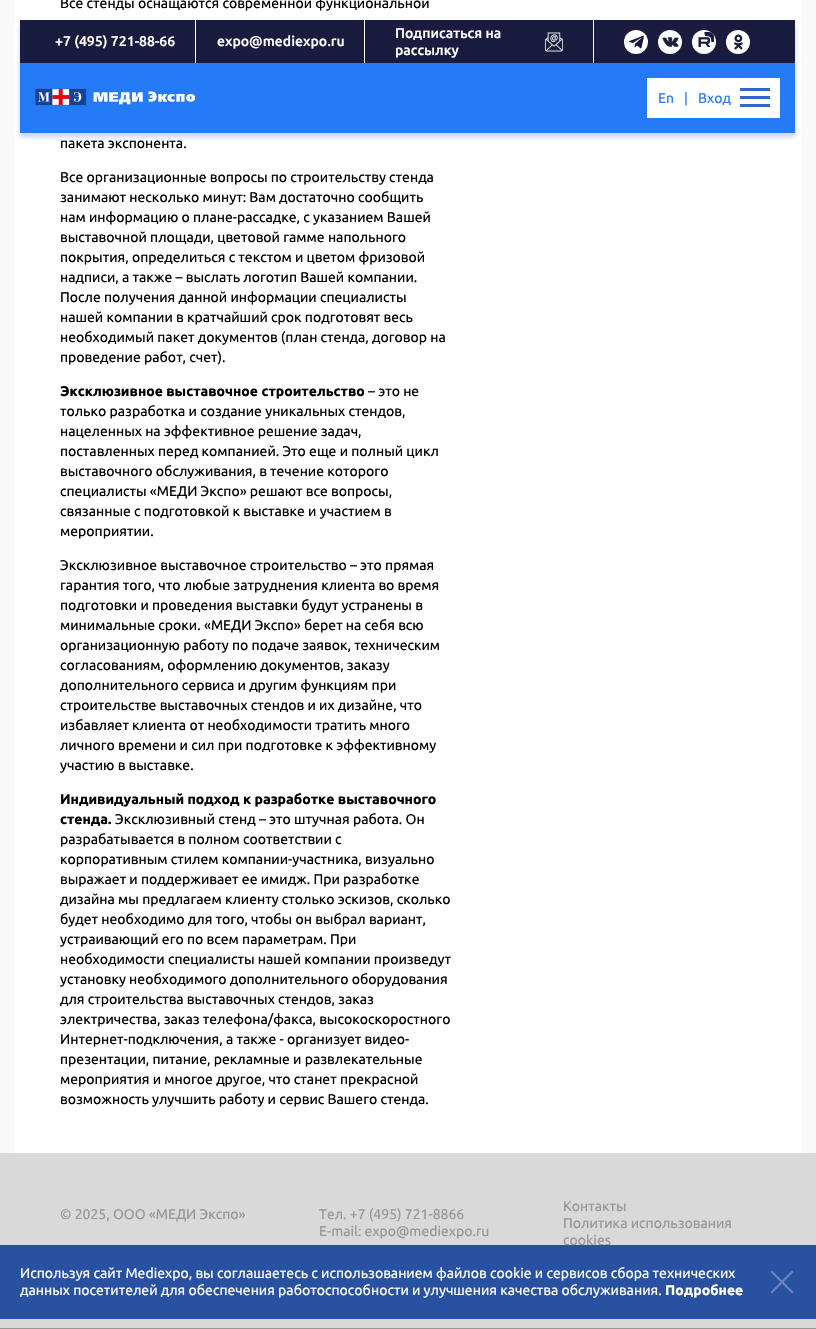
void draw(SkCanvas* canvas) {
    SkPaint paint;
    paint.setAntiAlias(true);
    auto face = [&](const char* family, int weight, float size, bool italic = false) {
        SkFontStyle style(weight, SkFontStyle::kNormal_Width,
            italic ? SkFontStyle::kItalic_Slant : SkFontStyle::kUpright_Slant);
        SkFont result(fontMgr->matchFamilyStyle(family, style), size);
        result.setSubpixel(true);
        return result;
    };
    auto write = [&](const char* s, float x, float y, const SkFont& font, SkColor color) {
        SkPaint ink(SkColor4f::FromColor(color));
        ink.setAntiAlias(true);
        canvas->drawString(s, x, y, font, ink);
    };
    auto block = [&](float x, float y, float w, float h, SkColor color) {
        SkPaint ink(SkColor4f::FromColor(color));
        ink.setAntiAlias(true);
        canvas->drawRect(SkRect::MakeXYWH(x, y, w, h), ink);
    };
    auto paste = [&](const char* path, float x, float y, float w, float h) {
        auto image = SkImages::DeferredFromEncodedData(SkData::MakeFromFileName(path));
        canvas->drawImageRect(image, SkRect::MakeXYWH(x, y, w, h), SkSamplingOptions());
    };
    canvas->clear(SkColorSetRGB(249, 249, 249));
    block(15, 0, 786, 1153, SK_ColorWHITE);
    auto kFont1 = face("Ubuntu", 400, 14);
    write("Все стенды оснащаются современной функциональной", 60, 8, kFont1, SK_ColorBLACK);
    write("пакета экспонента.", 60, 148, kFont1, SK_ColorBLACK);
    write("Все организационные вопросы по строительству стенда", 60, 182, kFont1, SK_ColorBLACK);
    write("занимают несколько минут: Вам достаточно сообщить", 60, 202, kFont1, SK_ColorBLACK);
    write("нам информацию о плане-рассадке, с указанием Вашей", 60, 222, kFont1, SK_ColorBLACK);
    write("выставочной площади, цветовой гамме напольного", 60, 242, kFont1, SK_ColorBLACK);
    write("покрытия, определиться с текстом и цветом фризовой", 60, 262, kFont1, SK_ColorBLACK);
    write("надписи, а также – выслать логотип Вашей компании.", 60, 282, kFont1, SK_ColorBLACK);
    write("После получения данной информации специалисты", 60, 302, kFont1, SK_ColorBLACK);
    write("нашей компании в кратчайший срок подготовят весь", 60, 322, kFont1, SK_ColorBLACK);
    write("необходимый пакет документов (план стенда, договор на", 60, 342, kFont1, SK_ColorBLACK);
    write("проведение работ, счет).", 60, 362, kFont1, SK_ColorBLACK);
    auto kFont2 = face("Ubuntu", 700, 14);
    write("Эксклюзивное выставочное строительство", 60, 396, kFont2, SK_ColorBLACK);
    write("– это не", 368, 396, kFont1, SK_ColorBLACK);
    write("только разработка и создание уникальных стендов,", 60, 416, kFont1, SK_ColorBLACK);
    write("нацеленных на эффективное решение задач,", 60, 436, kFont1, SK_ColorBLACK);
    write("поставленных перед компанией. Это еще и полный цикл", 60, 456, kFont1, SK_ColorBLACK);
    write("выставочного обслуживания, в течение которого", 60, 476, kFont1, SK_ColorBLACK);
    write("специалисты «МЕДИ Экспо» решают все вопросы,", 60, 496, kFont1, SK_ColorBLACK);
    write("связанные с подготовкой к выставке и участием в", 60, 516, kFont1, SK_ColorBLACK);
    write("мероприятии.", 60, 536, kFont1, SK_ColorBLACK);
    write("Эксклюзивное выставочное строительство – это прямая", 60, 570, kFont1, SK_ColorBLACK);
    write("гарантия того, что любые затруднения клиента во время", 60, 590, kFont1, SK_ColorBLACK);
    write("подготовки и проведения выставки будут устранены в", 60, 610, kFont1, SK_ColorBLACK);
    write("минимальные сроки. «МЕДИ Экспо» берет на себя всю", 60, 630, kFont1, SK_ColorBLACK);
    write("организационную работу по подаче заявок, техническим", 60, 650, kFont1, SK_ColorBLACK);
    write("согласованиям, оформлению документов, заказу", 60, 670, kFont1, SK_ColorBLACK);
    write("дополнительного сервиса и другим функциям при", 60, 690, kFont1, SK_ColorBLACK);
    write("строительстве выставочных стендов и их дизайне, что", 60, 710, kFont1, SK_ColorBLACK);
    write("избавляет клиента от необходимости тратить много", 60, 730, kFont1, SK_ColorBLACK);
    write("личного времени и сил при подготовке к эффективному", 60, 750, kFont1, SK_ColorBLACK);
    write("участию в выставке.", 60, 770, kFont1, SK_ColorBLACK);
    write("Индивидуальный подход к разработке выставочного", 60, 804, kFont2, SK_ColorBLACK);
    write("стенда.", 60, 824, kFont2, SK_ColorBLACK);
    write("Эксклюзивный стенд – это штучная работа. Он", 115, 824, kFont1, SK_ColorBLACK);
    write("разрабатывается в полном соответствии с", 60, 844, kFont1, SK_ColorBLACK);
    write("корпоративным стилем компании-участника, визуально", 60, 864, kFont1, SK_ColorBLACK);
    write("выражает и поддерживает ее имидж. При разработке", 60, 884, kFont1, SK_ColorBLACK);
    write("дизайна мы предлагаем клиенту столько эскизов, сколько", 60, 904, kFont1, SK_ColorBLACK);
    write("будет необходимо для того, чтобы он выбрал вариант,", 60, 924, kFont1, SK_ColorBLACK);
    write("устраивающий его по всем параметрам. При", 60, 944, kFont1, SK_ColorBLACK);
    write("необходимости специалисты нашей компании произведут", 60, 964, kFont1, SK_ColorBLACK);
    write("установку необходимого дополнительного оборудования", 60, 984, kFont1, SK_ColorBLACK);
    write("для строительства выставочных стендов, заказ", 60, 1004, kFont1, SK_ColorBLACK);
    write("электричества, заказ телефона/факса, высокоскоростного", 60, 1024, kFont1, SK_ColorBLACK);
    write("Интернет-подключения, а также - организует видео-", 60, 1044, kFont1, SK_ColorBLACK);
    write("презентации, питание, рекламные и развлекательные", 60, 1064, kFont1, SK_ColorBLACK);
    write("мероприятия и многое другое, что станет прекрасной", 60, 1084, kFont1, SK_ColorBLACK);
    write("возможность улучшить работу и сервис Вашего стенда.", 60, 1104, kFont1, SK_ColorBLACK);
    paint.setColor(SkColorSetARGB(64, 23, 85, 245));
    paint.setMaskFilter(SkMaskFilter::MakeBlur(kNormal_SkBlurStyle, 2.5f));
    canvas->drawRect(SkRect::MakeXYWH(20, 24, 775, 113), paint);
    paint.setMaskFilter(nullptr);
    block(20, 63, 775, 70, SkColorSetRGB(37, 123, 245));
    block(20, 20, 775, 43, SkColorSetRGB(25, 28, 63));
    block(195, 20, 1, 43, SK_ColorWHITE);
    auto kFont3 = face("Ubuntu", 500, 14);
    write("+7 (495) 721-88-66", 55, 46, kFont3, SK_ColorWHITE);
    block(364, 20, 1, 43, SK_ColorWHITE);
    write("expo@mediexpo.ru", 217, 46, kFont3, SK_ColorWHITE);
    block(593, 20, 1, 43, SK_ColorWHITE);
    write("Подписаться на", 395, 38, kFont3, SK_ColorWHITE);
    paste("pic1.png", 544, 32, 19, 20);
    write("рассылку", 395, 55, kFont3, SK_ColorWHITE);
    paint.setColor(SK_ColorWHITE);
    canvas->drawCircle(636, 42, 12, paint);
    paste("pic2.png", 629, 35, 15, 14);
    canvas->drawCircle(670, 42, 12, paint);
    paste("pic3.png", 662, 37, 17, 10);
    canvas->drawCircle(704, 42, 12, paint);
    paste("pic4.png", 698, 32, 16, 15);
    canvas->drawCircle(738, 42, 12, paint);
    paste("pic5.png", 734, 34, 9, 16);
    paste("pic6.png", 35, 88, 160, 18);
    block(647, 78, 133, 40, SK_ColorWHITE);
    write("En", 658, 103, kFont1, SkColorSetRGB(37, 123, 245));
    write("|", 684, 103, kFont1, SkColorSetRGB(37, 123, 245));
    write("Вход", 698, 103, kFont1, SkColorSetRGB(37, 123, 245));
    block(740, 96, 30, 3, SkColorSetRGB(45, 104, 197));
    block(740, 88, 30, 3, SkColorSetRGB(45, 104, 197));
    block(740, 104, 30, 3, SkColorSetRGB(45, 104, 197));
    block(0, 1153, 816, 175, SkColorSetRGB(217, 217, 217));
    write("cookies", 563, 1245, kFont1, SkColorSetRGB(150, 150, 150));
    block(0, 1245, 816, 74, SkColorSetRGB(40, 81, 162));
    write("Используя сайт Mediexpo, вы соглашаетесь с использованием файлов cookie и сервисов сбора технических", 20, 1278, kFont1, SK_ColorWHITE);
    paint.setColor(SkColorSetRGB(105, 133, 190));
    canvas->drawPath(SkPathBuilder().moveTo(792, 1270.5f).lineTo(793.5f, 1272).lineTo(772, 1293.5f).lineTo(770.5f, 1292).close().detach(), paint);
    canvas->drawPath(SkPathBuilder().moveTo(770.5f, 1272).lineTo(772, 1270.5f).lineTo(793.5f, 1292).lineTo(792, 1293.5f).close().detach(), paint);
    write("данных посетителей для обеспечения работоспособности и улучшения качества обслуживания.", 20, 1295, kFont1, SK_ColorWHITE);
    write("Подробнее", 665, 1295, kFont2, SK_ColorWHITE);
    write("© 2025, ООО «МЕДИ Экспо»", 60, 1219, kFont1, SkColorSetRGB(150, 150, 150));
    write("Тел. +7 (495) 721-8866", 319, 1219, kFont1, SkColorSetRGB(150, 150, 150));
    write("E-mail: expo@mediexpo.ru", 319, 1236, kFont1, SkColorSetRGB(150, 150, 150));
    write("Контакты", 563, 1211, kFont1, SkColorSetRGB(150, 150, 150));
    write("Политика использования", 563, 1228, kFont1, SkColorSetRGB(150, 150, 150));
    block(0, 1328, 816, 1, SkColorSetRGB(150, 150, 150));
}
